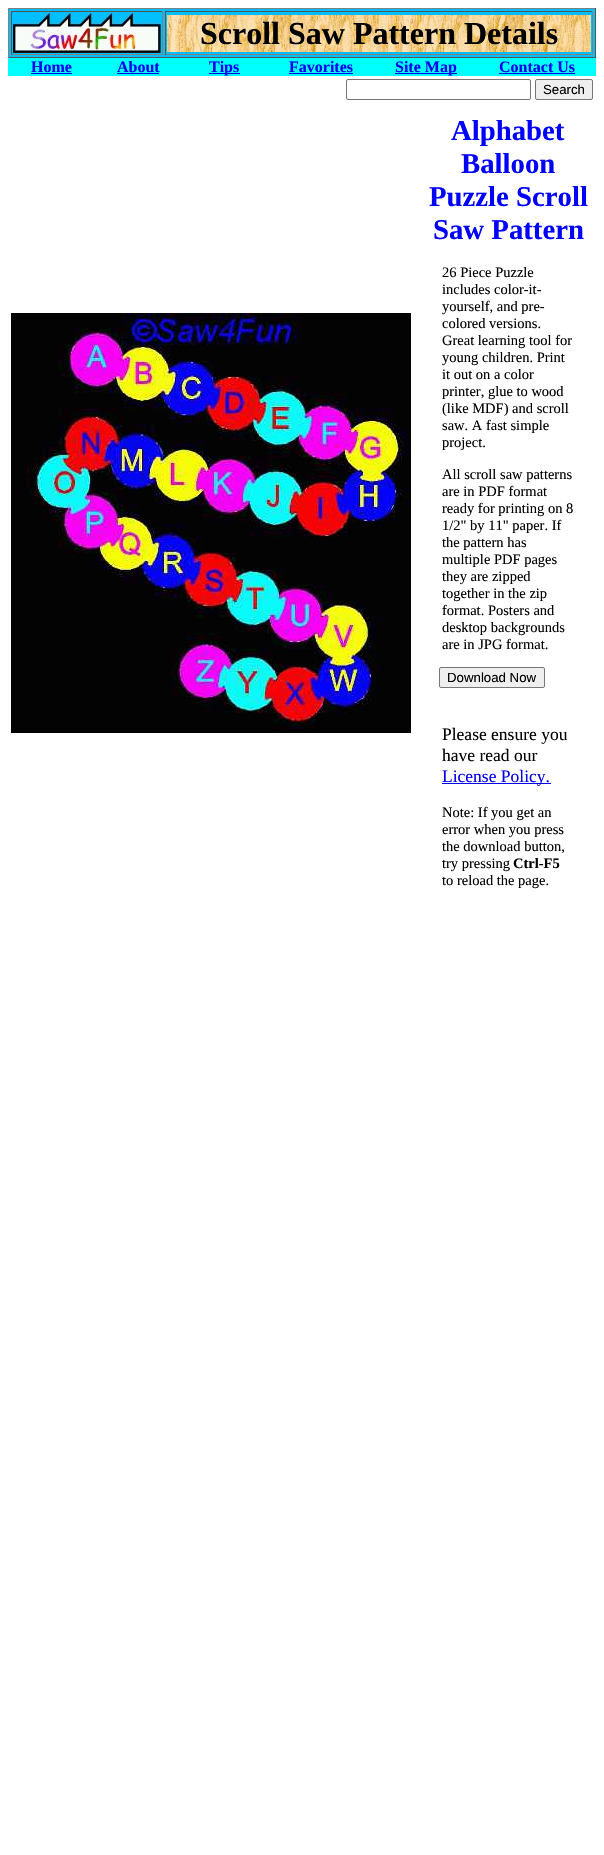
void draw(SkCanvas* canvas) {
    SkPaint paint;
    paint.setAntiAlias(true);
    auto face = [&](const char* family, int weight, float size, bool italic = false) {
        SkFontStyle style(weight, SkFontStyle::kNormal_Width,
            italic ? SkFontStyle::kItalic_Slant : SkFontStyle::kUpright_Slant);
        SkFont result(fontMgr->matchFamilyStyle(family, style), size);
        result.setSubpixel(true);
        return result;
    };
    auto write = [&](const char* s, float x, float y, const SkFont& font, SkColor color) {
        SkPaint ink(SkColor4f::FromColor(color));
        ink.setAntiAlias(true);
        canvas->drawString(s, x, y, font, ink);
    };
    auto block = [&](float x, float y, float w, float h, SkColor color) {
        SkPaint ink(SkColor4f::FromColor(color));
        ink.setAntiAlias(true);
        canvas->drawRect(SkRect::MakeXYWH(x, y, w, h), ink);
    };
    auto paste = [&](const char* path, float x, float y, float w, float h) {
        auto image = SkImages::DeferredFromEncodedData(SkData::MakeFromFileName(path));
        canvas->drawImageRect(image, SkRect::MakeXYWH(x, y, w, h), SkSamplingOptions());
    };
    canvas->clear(SK_ColorWHITE);
    block(9, 9, 586, 48, SkColorSetRGB(0, 191, 255));
    block(8, 8, 588, 1, SkColorSetRGB(128, 128, 128));
    block(595, 8, 1, 50, SkColorSetRGB(85, 85, 85));
    block(8, 57, 588, 1, SkColorSetRGB(85, 85, 85));
    block(8, 8, 1, 50, SkColorSetRGB(128, 128, 128));
    block(11, 11, 152, 1, SkColorSetRGB(85, 85, 85));
    block(162, 11, 1, 44, SkColorSetRGB(128, 128, 128));
    block(11, 54, 152, 1, SkColorSetRGB(128, 128, 128));
    block(11, 11, 1, 44, SkColorSetRGB(85, 85, 85));
    paste("pic1.png", 13, 13, 148, 40);
    block(165, 11, 428, 1, SkColorSetRGB(85, 85, 85));
    block(592, 11, 1, 44, SkColorSetRGB(128, 128, 128));
    block(165, 54, 428, 1, SkColorSetRGB(128, 128, 128));
    block(165, 11, 1, 44, SkColorSetRGB(85, 85, 85));
    paste("pic2.png", 167, 15, 424, 37);
    auto kFont1 = face("Liberation Serif", 700, 32);
    write("Scroll Saw Pattern Details", 200, 44, kFont1, SK_ColorBLACK);
    block(8, 58, 588, 18, SkColorSetRGB(0, 255, 255));
    auto kFont2 = face("Liberation Serif", 700, 16);
    write("Home", 31, 72, kFont2, SkColorSetRGB(0, 0, 238));
    block(31, 73, 41, 1, SkColorSetRGB(0, 0, 238));
    write("About", 117, 72, kFont2, SkColorSetRGB(0, 0, 238));
    block(117, 73, 42, 1, SkColorSetRGB(0, 0, 238));
    block(209, 73, 31, 1, SkColorSetRGB(0, 0, 238));
    write("Tips", 209, 72, kFont2, SkColorSetRGB(0, 0, 238));
    write("Favorites", 289, 72, kFont2, SkColorSetRGB(0, 0, 238));
    block(289, 73, 64, 1, SkColorSetRGB(0, 0, 238));
    block(395, 73, 62, 1, SkColorSetRGB(0, 0, 238));
    write("Site Map", 395, 72, kFont2, SkColorSetRGB(0, 0, 238));
    write("Contact Us", 499, 72, kFont2, SkColorSetRGB(0, 0, 238));
    block(499, 73, 76, 1, SkColorSetRGB(0, 0, 238));
    paint.setStyle(SkPaint::kStroke_Style);
    paint.setStrokeWidth(1);
    paint.setColor(SkColorSetRGB(118, 118, 118));
    canvas->drawRoundRect(SkRect::MakeXYWH(346.5f, 79.5f, 184, 20), 1.5f, 1.5f, paint);
    paint.setStyle(SkPaint::kFill_Style);
    paint.setColor(SkColorSetRGB(239, 239, 239));
    canvas->drawRoundRect(SkRect::MakeXYWH(535.5f, 79.5f, 57, 20), 1.5f, 1.5f, paint);
    paint.setStyle(SkPaint::kStroke_Style);
    paint.setColor(SkColorSetRGB(118, 118, 118));
    canvas->drawRoundRect(SkRect::MakeXYWH(535.5f, 79.5f, 57, 20), 1.5f, 1.5f, paint);
    auto kFont3 = face("Liberation Sans", 400, 13.25f);
    write("Search", 543, 94, kFont3, SK_ColorBLACK);
    paste("pic3.png", 11, 313, 400, 420);
    auto kFont4 = face("Liberation Serif", 700, 28.75f);
    write("Alphabet", 451, 140, kFont4, SkColorSetRGB(0, 0, 255));
    write("Balloon", 461, 173, kFont4, SkColorSetRGB(0, 0, 255));
    write("Puzzle Scroll", 429, 206, kFont4, SkColorSetRGB(0, 0, 255));
    write("Saw Pattern", 433, 239, kFont4, SkColorSetRGB(0, 0, 255));
    auto kFont5 = face("Liberation Serif", 400, 14.5f);
    write("26 Piece Puzzle", 442, 277, kFont5, SK_ColorBLACK);
    write("includes color-it-", 442, 294, kFont5, SK_ColorBLACK);
    write("yourself, and pre-", 442, 311, kFont5, SK_ColorBLACK);
    write("colored versions.", 442, 328, kFont5, SK_ColorBLACK);
    write("Great learning tool for", 442, 345, kFont5, SK_ColorBLACK);
    write("young children. Print", 442, 362, kFont5, SK_ColorBLACK);
    write("it out on a color", 442, 379, kFont5, SK_ColorBLACK);
    write("printer, glue to wood", 442, 396, kFont5, SK_ColorBLACK);
    write("(like MDF) and scroll", 442, 413, kFont5, SK_ColorBLACK);
    write("saw. A fast simple", 442, 430, kFont5, SK_ColorBLACK);
    write("project.", 442, 447, kFont5, SK_ColorBLACK);
    write("All scroll saw patterns", 442, 479, kFont5, SK_ColorBLACK);
    write("are in PDF format", 442, 496, kFont5, SK_ColorBLACK);
    write("ready for printing on 8", 442, 513, kFont5, SK_ColorBLACK);
    write("1/2\" by 11\" paper. If", 442, 530, kFont5, SK_ColorBLACK);
    write("the pattern has", 442, 547, kFont5, SK_ColorBLACK);
    write("multiple PDF pages", 442, 564, kFont5, SK_ColorBLACK);
    write("they are zipped", 442, 581, kFont5, SK_ColorBLACK);
    write("together in the zip", 442, 598, kFont5, SK_ColorBLACK);
    write("format. Posters and", 442, 615, kFont5, SK_ColorBLACK);
    write("desktop backgrounds", 442, 632, kFont5, SK_ColorBLACK);
    write("are in JPG format.", 442, 649, kFont5, SK_ColorBLACK);
    paint.setStyle(SkPaint::kFill_Style);
    paint.setColor(SkColorSetRGB(239, 239, 239));
    canvas->drawRoundRect(SkRect::MakeXYWH(439.5f, 667.5f, 105, 20), 1.5f, 1.5f, paint);
    paint.setStyle(SkPaint::kStroke_Style);
    paint.setColor(SkColorSetRGB(118, 118, 118));
    canvas->drawRoundRect(SkRect::MakeXYWH(439.5f, 667.5f, 105, 20), 1.5f, 1.5f, paint);
    write("Download Now", 447, 682, kFont3, SK_ColorBLACK);
    auto kFont6 = face("Liberation Serif", 400, 17.5f);
    write("Please ensure you", 442, 740, kFont6, SK_ColorBLACK);
    write("have read our", 442, 761, kFont6, SK_ColorBLACK);
    block(442, 783, 109, 1, SkColorSetRGB(0, 0, 238));
    write("License Policy.", 442, 782, kFont6, SkColorSetRGB(0, 0, 238));
    write("Note: If you get an", 442, 817, kFont5, SK_ColorBLACK);
    write("error when you press", 442, 834, kFont5, SK_ColorBLACK);
    write("the download button,", 442, 851, kFont5, SK_ColorBLACK);
    write("try pressing", 442, 868, kFont5, SK_ColorBLACK);
    auto kFont7 = face("Liberation Serif", 700, 14.5f);
    write("Ctrl-F5", 513, 868, kFont7, SK_ColorBLACK);
    write("to reload the page.", 442, 885, kFont5, SK_ColorBLACK);
}
